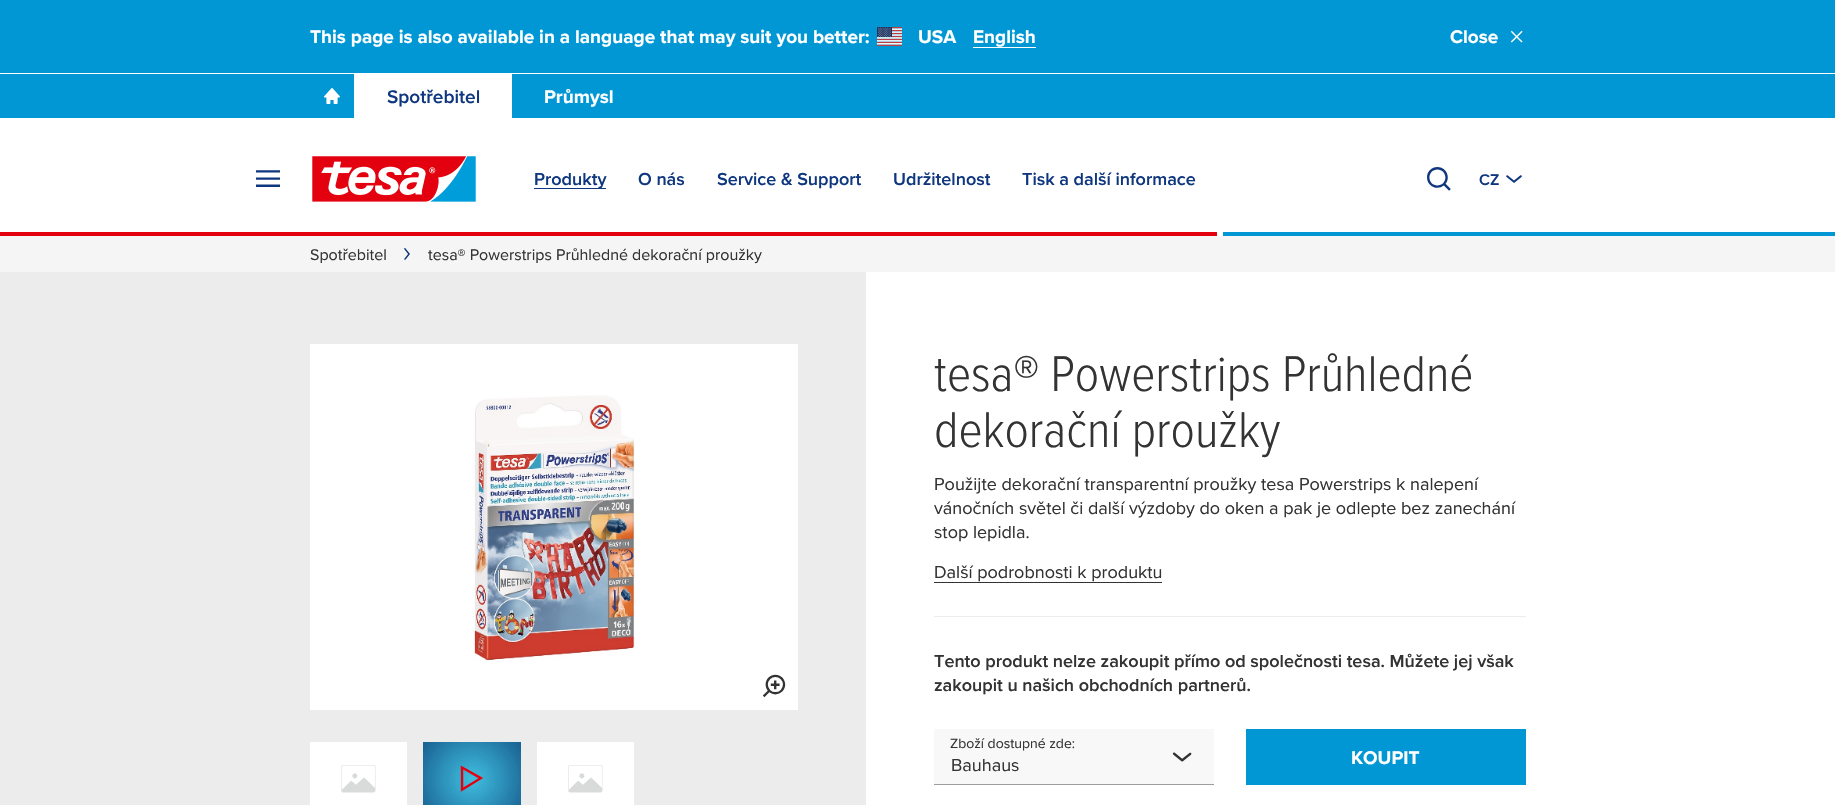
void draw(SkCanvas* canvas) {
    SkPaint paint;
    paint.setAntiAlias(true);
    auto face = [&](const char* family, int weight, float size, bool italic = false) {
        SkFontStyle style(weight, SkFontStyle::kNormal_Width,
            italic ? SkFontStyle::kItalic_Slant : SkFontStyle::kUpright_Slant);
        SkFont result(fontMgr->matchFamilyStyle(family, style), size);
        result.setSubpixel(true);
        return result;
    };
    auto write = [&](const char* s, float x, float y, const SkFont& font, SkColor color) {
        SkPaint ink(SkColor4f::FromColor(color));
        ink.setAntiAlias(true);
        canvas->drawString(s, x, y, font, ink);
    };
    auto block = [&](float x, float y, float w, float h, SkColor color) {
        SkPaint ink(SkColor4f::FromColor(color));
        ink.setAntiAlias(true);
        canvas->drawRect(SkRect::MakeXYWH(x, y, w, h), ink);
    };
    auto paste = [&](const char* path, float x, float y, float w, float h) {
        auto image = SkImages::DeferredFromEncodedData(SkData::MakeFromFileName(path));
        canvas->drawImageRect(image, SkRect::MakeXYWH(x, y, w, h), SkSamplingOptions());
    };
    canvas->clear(SK_ColorWHITE);
    block(0, 0, 1835, 73, SkColorSetRGB(0, 151, 212));
    auto kFont1 = face("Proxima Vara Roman", 700, 19);
    write("This page is also available in a language that may suit you better:", 310, 43, kFont1, SK_ColorWHITE);
    paste("pic1.png", 877, 27, 25, 19);
    write("USA", 918, 43, kFont1, SK_ColorWHITE);
    write("English", 973, 43, kFont1, SK_ColorWHITE);
    block(973, 47, 63, 1, SK_ColorWHITE);
    write("Close", 1450, 43, kFont1, SK_ColorWHITE);
    paste("pic2.png", 1510, 30, 13, 13);
    block(0, 74, 1835, 44, SkColorSetRGB(0, 151, 212));
    paste("pic3.png", 324, 88, 16, 16);
    block(354, 74, 158, 44, SK_ColorWHITE);
    auto kFont2 = face("Proxima Vara Roman", 600, 19);
    write("Spotřebitel", 387, 103, kFont2, SkColorSetRGB(15, 55, 127));
    write("Průmysl", 544, 103, kFont1, SK_ColorWHITE);
    paste("pic4.png", 256, 170, 24, 17);
    paste("pic5.png", 312, 156, 164, 46);
    block(534, 188, 72, 1, SkColorSetRGB(15, 55, 127));
    auto kFont3 = face("Proxima Vara Roman", 600, 18);
    write("Produkty", 534, 185, kFont3, SkColorSetRGB(15, 55, 127));
    write("O nás", 638, 185, kFont3, SkColorSetRGB(15, 55, 127));
    write("Service & Support", 717, 185, kFont3, SkColorSetRGB(15, 55, 127));
    write("Udržitelnost", 893, 185, kFont3, SkColorSetRGB(15, 55, 127));
    write("Tisk a další informace", 1022, 185, kFont3, SkColorSetRGB(15, 55, 127));
    paste("pic6.png", 1427, 167, 24, 24);
    auto kFont4 = face("Proxima Vara Roman", 600, 16);
    write("CZ", 1479, 185, kFont4, SkColorSetRGB(15, 55, 127));
    paste("pic7.png", 1506, 175, 16, 8);
    block(1223, 232, 612, 4, SkColorSetRGB(0, 151, 212));
    block(0, 232, 1223, 4, SkColorSetRGB(227, 0, 15));
    block(1217, 232, 6, 4, SK_ColorWHITE);
    block(0, 236, 1835, 36, SkColorSetRGB(245, 245, 245));
    auto kFont5 = face("Proxima Vara Roman", 400, 16);
    write("Spotřebitel", 310, 260, kFont5, SkColorSetRGB(51, 51, 51));
    paste("pic8.png", 404, 248, 6, 12);
    write("tesa® Powerstrips Průhledné dekorační proužky", 428, 260, kFont5, SkColorSetRGB(51, 51, 51));
    block(0, 272, 866, 533, SkColorSetRGB(236, 236, 237));
    block(310, 344, 488, 366, SK_ColorWHITE);
    paste("pic9.png", 473, 395, 162, 266);
    paste("pic10.png", 762, 674, 24, 24);
    block(310, 742, 97, 63, SK_ColorWHITE);
    paste("pic11.png", 341, 765, 35, 28);
    paste("pic12.png", 423, 742, 98, 63);
    paste("pic13.png", 460, 765, 23, 27);
    block(537, 742, 97, 63, SK_ColorWHITE);
    paste("pic11.png", 568, 765, 35, 28);
    auto kFont6 = face("Proxima Vara Roman", 300, 52);
    write("tesa® Powerstrips Průhledné", 934, 391, kFont6, SkColorSetRGB(51, 51, 51));
    write("dekorační proužky", 934, 447, kFont6, SkColorSetRGB(51, 51, 51));
    auto kFont7 = face("Proxima Vara Roman", 400, 18);
    write("Použijte dekorační transparentní proužky tesa Powerstrips k nalepení", 934, 490, kFont7, SkColorSetRGB(51, 51, 51));
    write("vánočních světel či další výzdoby do oken a pak je odlepte bez zanechání", 934, 514, kFont7, SkColorSetRGB(51, 51, 51));
    write("stop lepidla.", 934, 538, kFont7, SkColorSetRGB(51, 51, 51));
    write("Další podrobnosti k produktu", 934, 578, kFont7, SkColorSetRGB(51, 51, 51));
    block(934, 582, 228, 1, SkColorSetRGB(51, 51, 51));
    block(934, 616, 592, 1, SkColorSetRGB(236, 236, 237));
    write("Tento produkt nelze zakoupit přímo od společnosti tesa. Můžete jej však", 934, 667, kFont3, SkColorSetRGB(51, 51, 51));
    write("zakoupit u našich obchodních partnerů.", 934, 691, kFont3, SkColorSetRGB(51, 51, 51));
    block(934, 729, 280, 55, SkColorSetRGB(248, 248, 248));
    auto kFont8 = face("Proxima Vara Roman", 400, 14);
    write("Zboží dostupné zde:", 950, 748, kFont8, SkColorSetRGB(51, 51, 51));
    paste("pic14.png", 1172, 752, 20, 10);
    write("Bauhaus", 951, 771, kFont7, SkColorSetRGB(51, 51, 51));
    block(934, 784, 280, 1, SkColorSetRGB(156, 157, 157));
    block(1246, 729, 280, 56, SkColorSetRGB(0, 151, 212));
    write("KOUPIT", 1351, 764, kFont1, SK_ColorWHITE);
}
